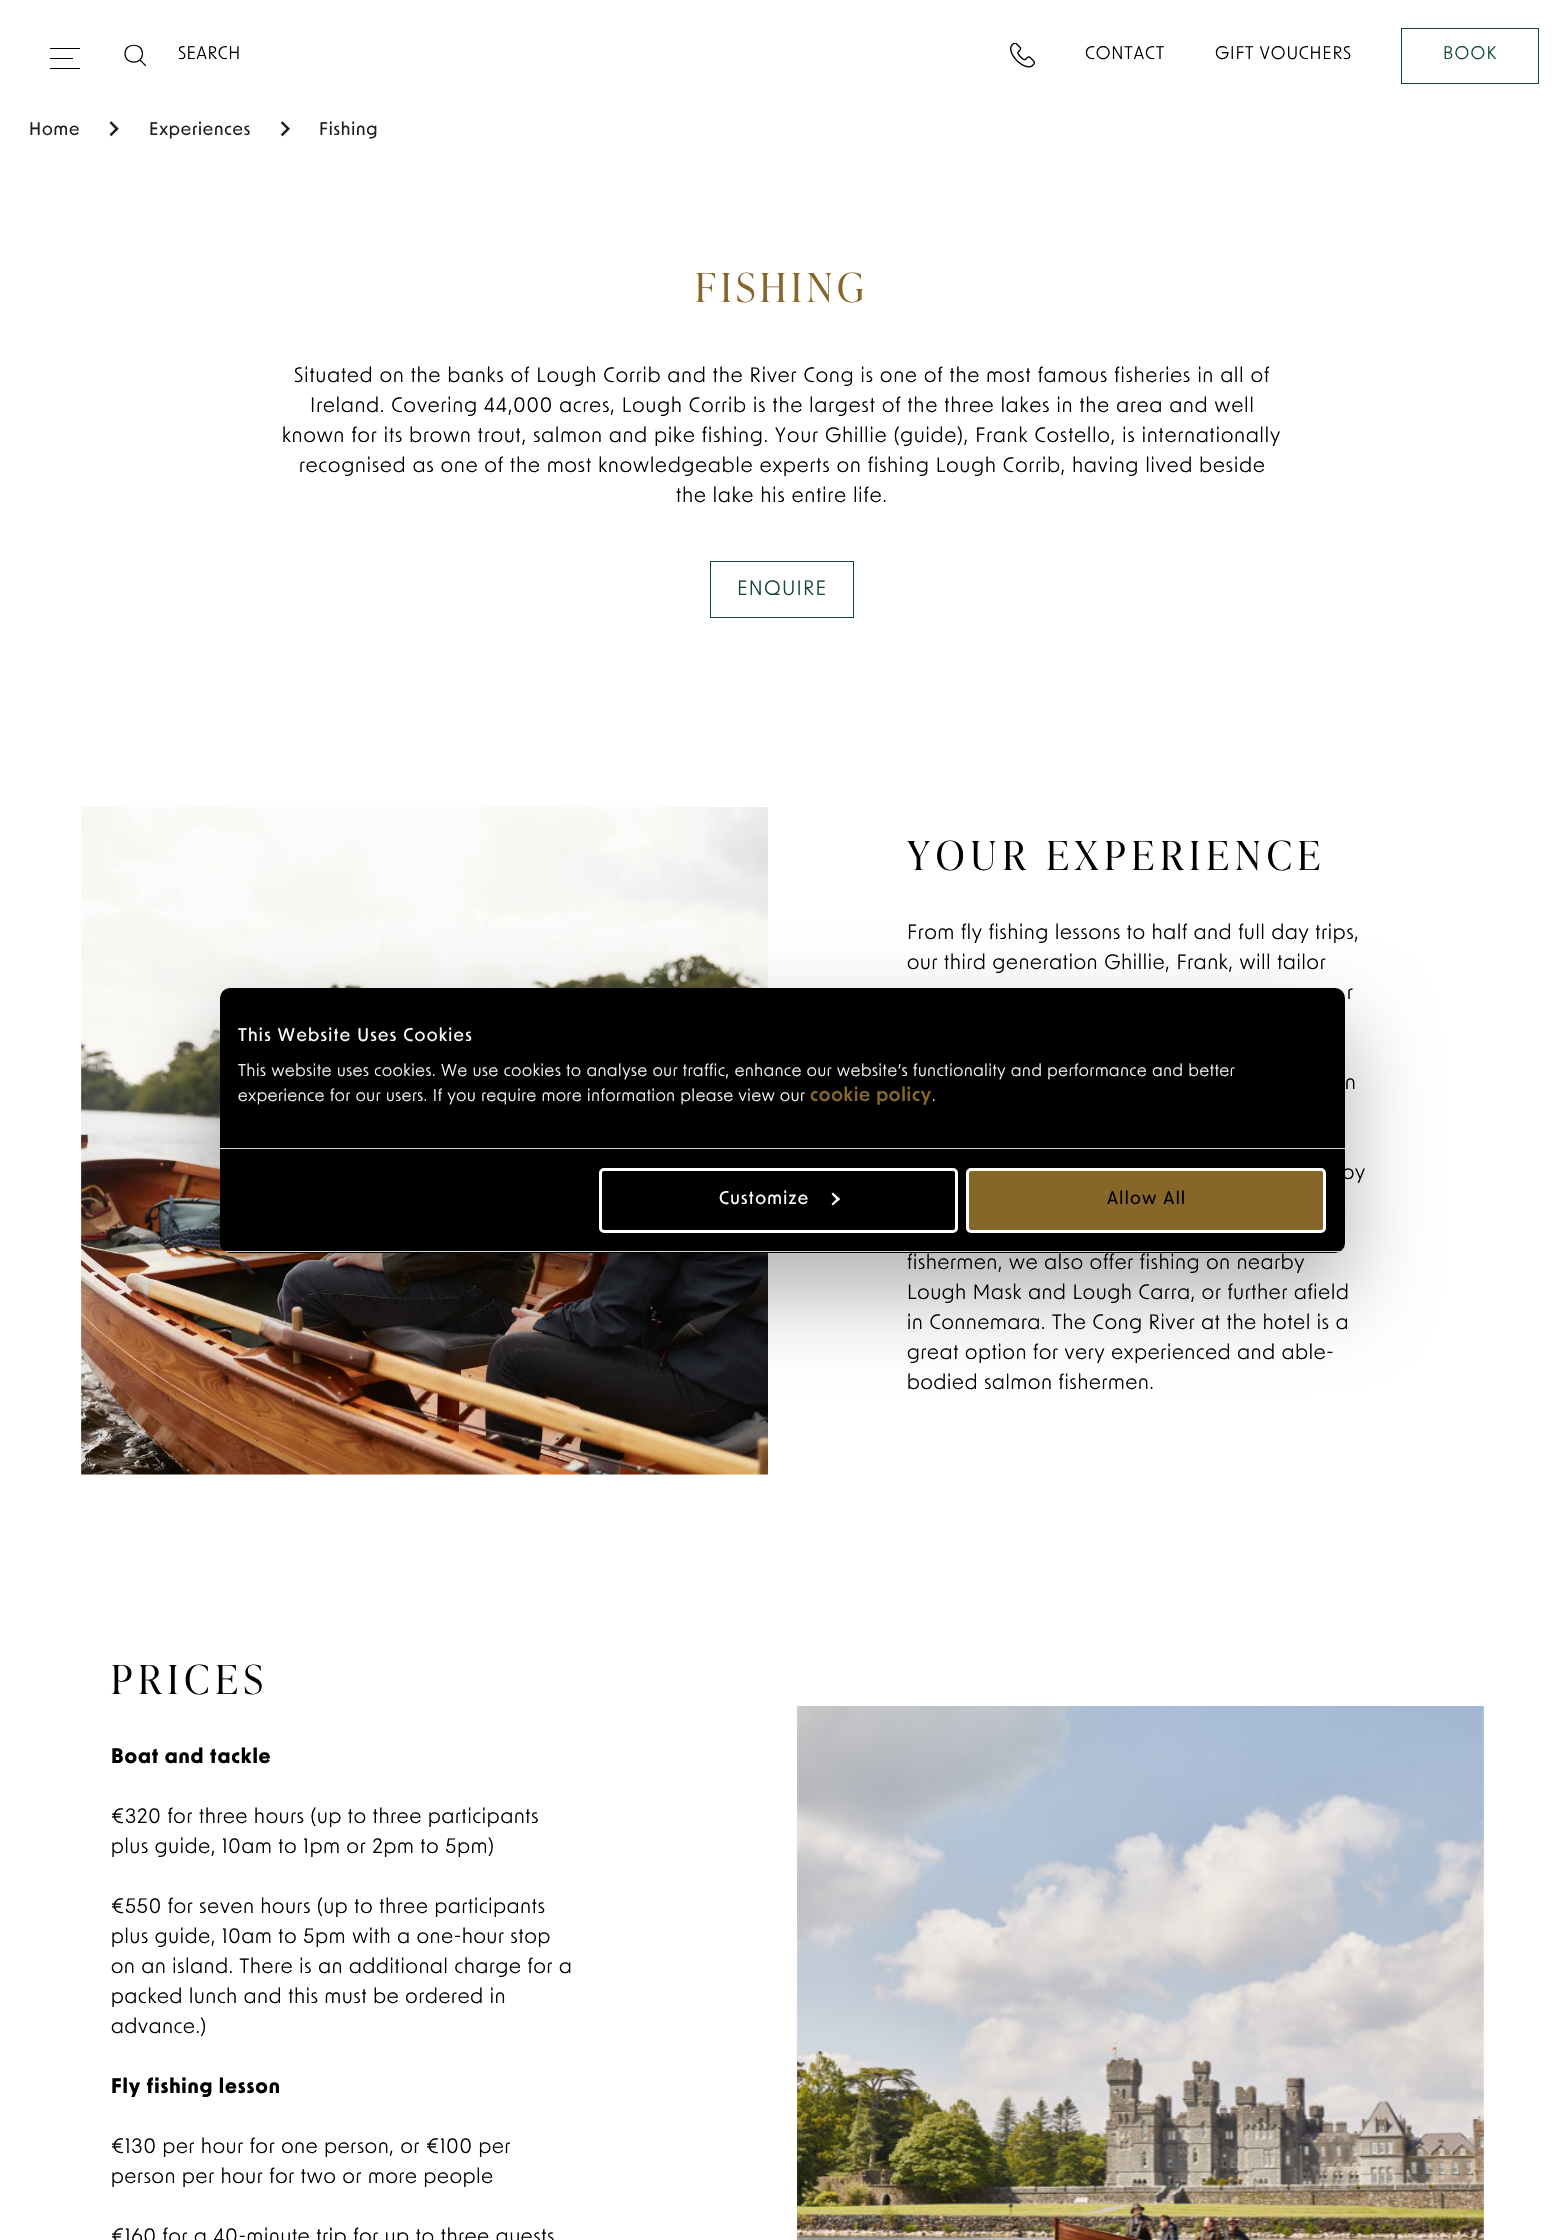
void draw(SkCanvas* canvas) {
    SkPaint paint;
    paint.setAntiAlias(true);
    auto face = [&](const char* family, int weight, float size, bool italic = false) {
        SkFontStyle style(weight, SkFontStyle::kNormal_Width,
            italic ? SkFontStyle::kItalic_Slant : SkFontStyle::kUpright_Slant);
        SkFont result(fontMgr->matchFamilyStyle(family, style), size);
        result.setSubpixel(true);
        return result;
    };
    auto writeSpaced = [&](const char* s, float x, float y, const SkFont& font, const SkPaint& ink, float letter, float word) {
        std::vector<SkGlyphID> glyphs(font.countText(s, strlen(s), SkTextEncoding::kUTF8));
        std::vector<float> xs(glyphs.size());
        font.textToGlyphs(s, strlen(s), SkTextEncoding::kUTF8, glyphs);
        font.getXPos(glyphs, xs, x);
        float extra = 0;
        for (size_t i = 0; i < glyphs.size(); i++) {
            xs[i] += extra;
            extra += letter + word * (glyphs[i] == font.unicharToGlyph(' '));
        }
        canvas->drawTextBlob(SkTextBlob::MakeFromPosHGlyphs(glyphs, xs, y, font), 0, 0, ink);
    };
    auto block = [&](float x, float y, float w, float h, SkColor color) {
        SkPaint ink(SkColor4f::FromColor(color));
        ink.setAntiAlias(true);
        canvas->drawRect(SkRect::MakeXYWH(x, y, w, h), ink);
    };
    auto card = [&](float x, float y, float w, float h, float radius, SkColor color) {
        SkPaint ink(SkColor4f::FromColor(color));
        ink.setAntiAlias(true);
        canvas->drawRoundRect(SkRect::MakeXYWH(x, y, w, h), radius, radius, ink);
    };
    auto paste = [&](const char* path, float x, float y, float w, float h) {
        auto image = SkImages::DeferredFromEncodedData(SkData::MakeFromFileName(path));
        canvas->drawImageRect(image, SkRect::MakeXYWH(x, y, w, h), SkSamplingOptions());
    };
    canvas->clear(SK_ColorWHITE);
    block(50, 48, 30, 1, SK_ColorBLACK);
    block(50, 58, 23, 1, SK_ColorBLACK);
    block(50, 68, 30, 1, SK_ColorBLACK);
    paint.setStyle(SkPaint::kStroke_Style);
    paint.setStrokeWidth(1.2f);
    paint.setColor(SK_ColorBLACK);
    canvas->drawPath(SkPathBuilder().moveTo(142.5f, 53.5f).cubicTo(142.5f, 65, 125, 65, 125, 53.5f).cubicTo(125, 42.5f, 142.5f, 42.5f, 142.5f, 53.5f).close().detach(), paint);
    paint.setStrokeCap(SkPaint::kRound_Cap);
    paint.setStrokeJoin(SkPaint::kRound_Join);
    canvas->drawPath(SkPathBuilder().moveTo(145.5f, 65.5f).lineTo(140.5f, 60.5f).detach(), paint);
    auto kFont1 = face("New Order", 400, 17.5f);
    paint.setStyle(SkPaint::kFill_Style);
    writeSpaced("SEARCH", 178, 59, kFont1, paint, 0.5f, 0);
    paste("pic1.png", 1010, 43, 25, 25);
    writeSpaced("CONTACT", 1085, 59, kFont1, paint, 0.8f, 0);
    writeSpaced("GIFT VOUCHERS", 1215, 59, kFont1, paint, 0.8f, 0);
    paint.setStyle(SkPaint::kStroke_Style);
    paint.setStrokeWidth(1);
    paint.setStrokeCap(SkPaint::kButt_Cap);
    paint.setStrokeJoin(SkPaint::kMiter_Join);
    paint.setColor(SkColorSetRGB(18, 71, 51));
    canvas->drawRect(SkRect::MakeXYWH(1401.5f, 28.5f, 137, 55), paint);
    paint.setStyle(SkPaint::kFill_Style);
    writeSpaced("BOOK", 1443, 59, kFont1, paint, 1.25f, 0);
    auto kFont2 = face("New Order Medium", 500, 17.5f);
    paint.setColor(SkColorSetRGB(30, 30, 30));
    writeSpaced("Home", 29, 135, kFont2, paint, 0.8f, 0);
    paste("pic2.png", 109, 121, 10, 16);
    writeSpaced("Experiences", 149, 135, kFont2, paint, 0.8f, 0);
    paste("pic3.png", 280, 121, 10, 16);
    writeSpaced("Fishing", 319, 135, kFont2, paint, 0.8f, 0);
    auto kFont3 = face("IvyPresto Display", 300, 40);
    paint.setColor(SkColorSetRGB(135, 103, 41));
    writeSpaced("FISHING", 695, 302, kFont3, paint, 4.75f, 0);
    auto kFont4 = face("New Order", 400, 20);
    paint.setColor(SK_ColorBLACK);
    writeSpaced("Situated on the banks of Lough Corrib and the River Cong is one of the most famous fisheries in all of", 294, 382, kFont4, paint, 1, 0);
    writeSpaced("Ireland. Covering 44,000 acres, Lough Corrib is the largest of the three lakes in the area and well", 310, 412, kFont4, paint, 1, 0);
    writeSpaced("known for its brown trout, salmon and pike fishing. Your Ghillie (guide), Frank Costello, is internationally", 282, 442, kFont4, paint, 1, 0);
    writeSpaced("recognised as one of the most knowledgeable experts on fishing Lough Corrib, having lived beside", 299, 472, kFont4, paint, 1, 0);
    writeSpaced("the lake his entire life.", 676, 502, kFont4, paint, 1, 0);
    paint.setStyle(SkPaint::kStroke_Style);
    paint.setColor(SkColorSetRGB(18, 71, 51));
    canvas->drawRect(SkRect::MakeXYWH(710.5f, 561.5f, 143, 56), paint);
    paint.setStyle(SkPaint::kFill_Style);
    writeSpaced("ENQUIRE", 737, 595, kFont4, paint, 1.25f, 0);
    paste("pic4.png", 81, 807, 687, 668);
    paint.setColor(SK_ColorBLACK);
    writeSpaced("YOUR EXPERIENCE", 907, 870, kFont3, paint, 6.25f, 0);
    writeSpaced("From fly fishing lessons to half and full day trips,", 907, 939, kFont4, paint, 0.8f, 0);
    writeSpaced("our third generation Ghillie, Frank, will tailor", 907, 969, kFont4, paint, 0.8f, 0);
    writeSpaced("r", 1347, 999, kFont4, paint, 0.8f, 0);
    writeSpaced("n", 1345, 1089, kFont4, paint, 0.8f, 0);
    writeSpaced("oy", 1342, 1179, kFont4, paint, 0.8f, 0);
    writeSpaced("fishermen, we also offer fishing on nearby", 907, 1269, kFont4, paint, 0.8f, 0);
    writeSpaced("Lough Mask and Lough Carra, or further afield", 907, 1299, kFont4, paint, 0.8f, 0);
    writeSpaced("in Connemara. The Cong River at the hotel is a", 907, 1329, kFont4, paint, 0.8f, 0);
    writeSpaced("great option for very experienced and able-", 907, 1359, kFont4, paint, 0.8f, 0);
    writeSpaced("bodied salmon fishermen.", 907, 1389, kFont4, paint, 0.8f, 0);
    writeSpaced("PRICES", 111, 1694, kFont3, paint, 6.25f, 0);
    auto kFont5 = face("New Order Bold", 700, 20);
    writeSpaced("Boat and tackle", 111, 1763, kFont5, paint, 0.8f, 0);
    writeSpaced("€320 for three hours (up to three participants", 111, 1823, kFont4, paint, 0.8f, 0);
    writeSpaced("plus guide, 10am to 1pm or 2pm to 5pm)", 111, 1853, kFont4, paint, 0.8f, 0);
    writeSpaced("€550 for seven hours (up to three participants", 111, 1913, kFont4, paint, 0.8f, 0);
    writeSpaced("plus guide, 10am to 5pm with a one-hour stop", 111, 1943, kFont4, paint, 0.8f, 0);
    writeSpaced("on an island. There is an additional charge for a", 111, 1973, kFont4, paint, 0.8f, 0);
    writeSpaced("packed lunch and this must be ordered in", 111, 2003, kFont4, paint, 0.8f, 0);
    writeSpaced("advance.)", 111, 2033, kFont4, paint, 0.8f, 0);
    writeSpaced("Fly fishing lesson", 111, 2093, kFont5, paint, 0.8f, 0);
    writeSpaced("€130 per hour for one person, or €100 per", 111, 2153, kFont4, paint, 0.8f, 0);
    writeSpaced("person per hour for two or more people", 111, 2183, kFont4, paint, 0.8f, 0);
    writeSpaced("€160 for a 40-minute trip for up to three guests", 111, 2243, kFont4, paint, 0.8f, 0);
    paste("pic5.png", 797, 1706, 687, 534);
    paint.setColor(SkColorSetARGB(77, 0, 0, 0));
    paint.setMaskFilter(SkMaskFilter::MakeBlur(kNormal_SkBlurStyle, 42.5f));
    canvas->drawRoundRect(SkRect::MakeXYWH(220, 1028, 1125, 265), 10, 10, paint);
    paint.setMaskFilter(nullptr);
    card(220, 988, 1125, 265, 10, SK_ColorBLACK);
    block(220, 1148, 1125, 1, SkColorSetRGB(214, 214, 214));
    paint.setColor(SK_ColorWHITE);
    writeSpaced("This Website Uses Cookies", 238, 1041, kFont2, paint, 1.3f, 0);
    auto kFont6 = face("New Order", 400, 16.25f);
    paint.setColor(SkColorSetRGB(252, 248, 243));
    writeSpaced("This website uses cookies. We use cookies to analyse our traffic, enhance our website’s functionality and performance and better", 238, 1076, kFont6, paint, 0.69f, 0);
    writeSpaced("experience for our users. If you require more information please view our", 238, 1101, kFont6, paint, 0.69f, 0);
    auto kFont7 = face("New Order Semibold", 600, 18.75f);
    paint.setColor(SkColorSetRGB(135, 103, 41));
    writeSpaced("cookie policy", 810, 1101, kFont7, paint, 0.69f, 0);
    paint.setColor(SkColorSetRGB(252, 248, 243));
    writeSpaced(".", 932, 1101, kFont6, paint, 0.69f, 0);
    canvas->save();
    canvas->clipPath(SkPathBuilder().moveTo(230, 988).lineTo(1335, 988).cubicTo(1340.5f, 988, 1345, 992.5f, 1345, 998).lineTo(1345, 1243).cubicTo(1345, 1248.5f, 1340.5f, 1253, 1335, 1253).lineTo(230, 1253).cubicTo(224.5f, 1253, 220, 1248.5f, 220, 1243).lineTo(220, 998).cubicTo(220, 992.5f, 224.5f, 988, 230, 988).close().detach(), true);
    block(220, 1251, 1125, 1, SkColorSetRGB(214, 214, 214));
    canvas->restore();
    paint.setStyle(SkPaint::kStroke_Style);
    paint.setStrokeWidth(3);
    paint.setColor(SK_ColorWHITE);
    canvas->drawRoundRect(SkRect::MakeXYWH(600.5f, 1169.5f, 356, 62), 3.5f, 3.5f, paint);
    paint.setStyle(SkPaint::kFill_Style);
    writeSpaced("Customize", 719, 1204, kFont2, paint, 1.3f, 0);
    canvas->drawPath(SkPathBuilder().moveTo(833, 1192.5f).lineTo(840, 1199).lineTo(838, 1201).lineTo(831.5f, 1194).close().detach(), paint);
    canvas->drawPath(SkPathBuilder().moveTo(838, 1197.5f).lineTo(840, 1199).lineTo(833, 1205.5f).lineTo(831.5f, 1204).close().detach(), paint);
    paint.setColor(SkColorSetRGB(135, 103, 41));
    canvas->drawRoundRect(SkRect::MakeXYWH(967.5f, 1169.5f, 357, 62), 3.5f, 3.5f, paint);
    paint.setStyle(SkPaint::kStroke_Style);
    paint.setColor(SK_ColorWHITE);
    canvas->drawRoundRect(SkRect::MakeXYWH(967.5f, 1169.5f, 357, 62), 3.5f, 3.5f, paint);
    paint.setStyle(SkPaint::kFill_Style);
    paint.setColor(SK_ColorBLACK);
    writeSpaced("Allow All", 1107, 1204, kFont2, paint, 1.3f, 0);
}
